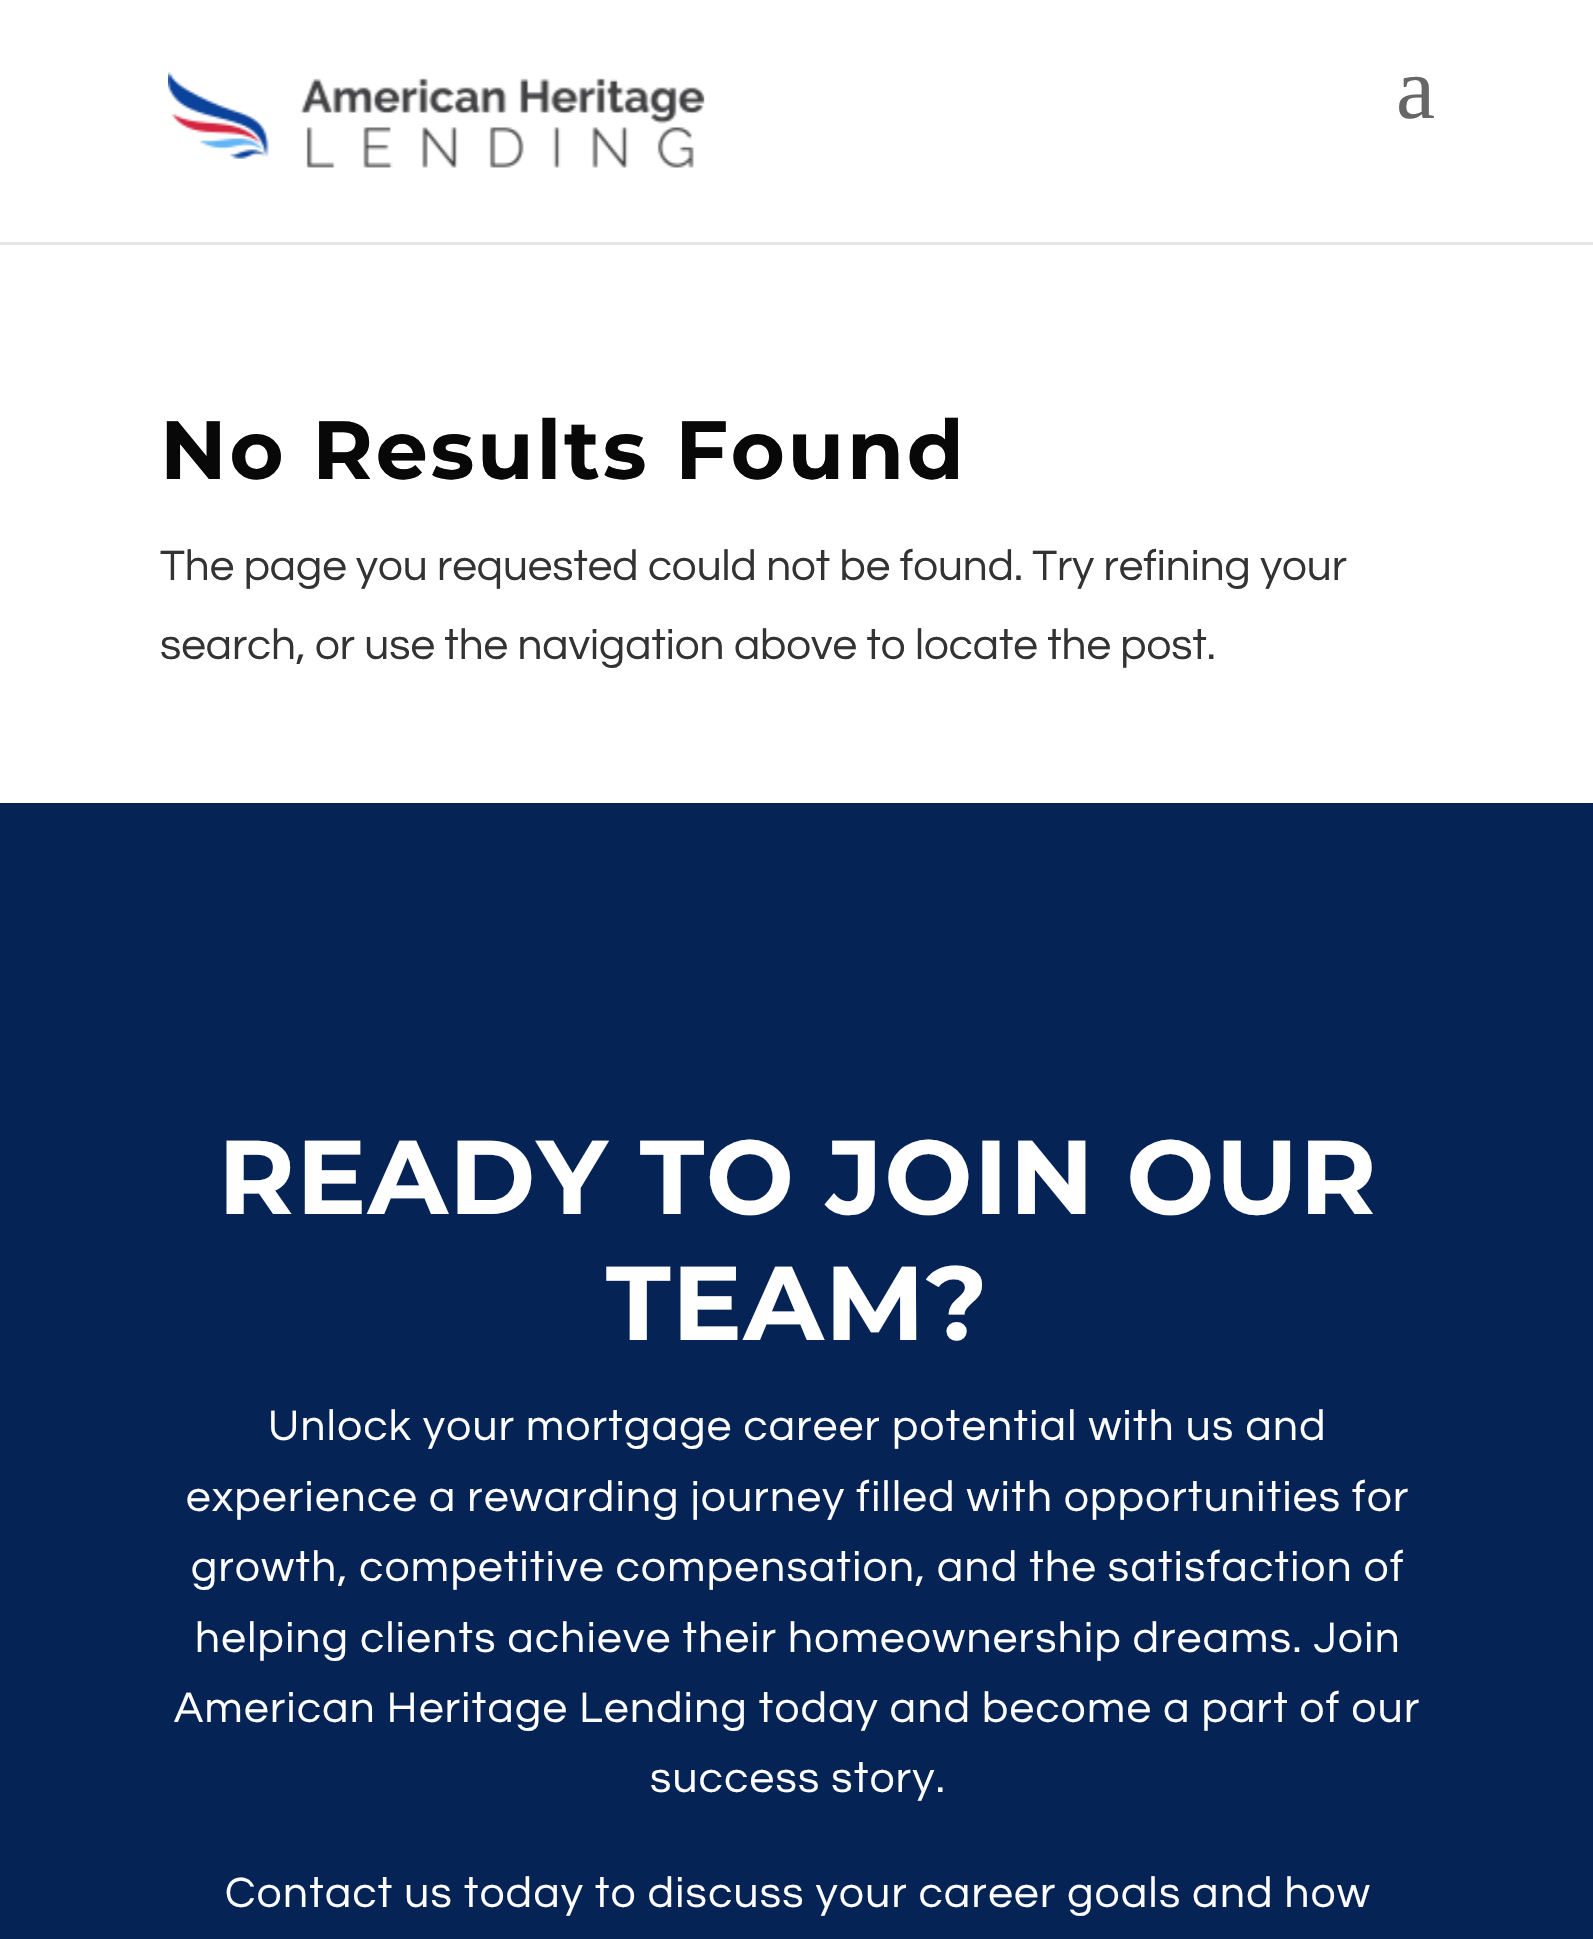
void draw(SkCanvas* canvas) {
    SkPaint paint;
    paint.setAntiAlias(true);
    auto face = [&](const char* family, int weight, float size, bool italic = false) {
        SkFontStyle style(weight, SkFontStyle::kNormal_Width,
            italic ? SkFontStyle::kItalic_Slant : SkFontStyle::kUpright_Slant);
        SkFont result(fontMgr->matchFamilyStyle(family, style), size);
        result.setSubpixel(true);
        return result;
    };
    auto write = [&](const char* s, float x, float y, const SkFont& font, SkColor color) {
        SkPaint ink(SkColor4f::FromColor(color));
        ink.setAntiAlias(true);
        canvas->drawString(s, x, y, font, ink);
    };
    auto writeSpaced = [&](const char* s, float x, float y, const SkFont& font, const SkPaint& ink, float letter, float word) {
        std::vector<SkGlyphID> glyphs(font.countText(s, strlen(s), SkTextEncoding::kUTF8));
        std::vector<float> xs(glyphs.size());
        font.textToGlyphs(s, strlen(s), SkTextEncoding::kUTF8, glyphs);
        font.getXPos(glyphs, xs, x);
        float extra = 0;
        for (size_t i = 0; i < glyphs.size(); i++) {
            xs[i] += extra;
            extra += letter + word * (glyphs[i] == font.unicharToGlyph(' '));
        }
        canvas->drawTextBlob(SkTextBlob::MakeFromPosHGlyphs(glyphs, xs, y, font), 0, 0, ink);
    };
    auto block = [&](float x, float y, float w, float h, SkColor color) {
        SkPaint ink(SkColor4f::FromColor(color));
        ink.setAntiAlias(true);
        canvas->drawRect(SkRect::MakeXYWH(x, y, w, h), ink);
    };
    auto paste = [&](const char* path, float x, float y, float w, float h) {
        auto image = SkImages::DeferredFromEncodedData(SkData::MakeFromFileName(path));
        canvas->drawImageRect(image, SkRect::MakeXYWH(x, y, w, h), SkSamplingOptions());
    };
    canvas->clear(SK_ColorWHITE);
    block(0, 242, 1593, 3, SkColorSetRGB(230, 230, 230));
    paste("pic1.png", 168, 72, 537, 96);
    auto kFont1 = face("Liberation Serif", 400, 88);
    write("a", 1396, 118, kFont1, SkColorSetRGB(102, 102, 102));
    auto kFont2 = face("Montserrat", 700, 82.5f);
    paint.setColor(SkColorSetRGB(8, 8, 8));
    writeSpaced("No Results Found", 160, 479, kFont2, paint, 2.75f, 0);
    auto kFont3 = face("Questrial", 400, 44);
    write("The page you requested could not be found. Try refining your", 160, 580, kFont3, SkColorSetRGB(51, 51, 51));
    write("search, or use the navigation above to locate the post.", 160, 659, kFont3, SkColorSetRGB(51, 51, 51));
    block(0, 803, 1593, 1136, SkColorSetRGB(5, 35, 84));
    auto kFont4 = face("Montserrat", 700, 104.5f);
    paint.setColor(SK_ColorWHITE);
    writeSpaced("READY TO JOIN OUR", 218, 1214, kFont4, paint, 1.38f, 0);
    writeSpaced("TEAM?", 606, 1340, kFont4, paint, 1.38f, 0);
    writeSpaced("Unlock your mortgage career potential with us and", 268, 1440, kFont3, paint, 1.38f, 0);
    writeSpaced("experience a rewarding journey filled with opportunities for", 186, 1511, kFont3, paint, 1.38f, 0);
    writeSpaced("growth, competitive compensation, and the satisfaction of", 191, 1581, kFont3, paint, 1.38f, 0);
    writeSpaced("helping clients achieve their homeownership dreams. Join", 195, 1652, kFont3, paint, 1.38f, 0);
    writeSpaced("American Heritage Lending today and become a part of our", 174, 1722, kFont3, paint, 1.38f, 0);
    writeSpaced("success story.", 650, 1792, kFont3, paint, 1.38f, 0);
    writeSpaced("Contact us today to discuss your career goals and how", 225, 1907, kFont3, paint, 1.38f, 0);
}
